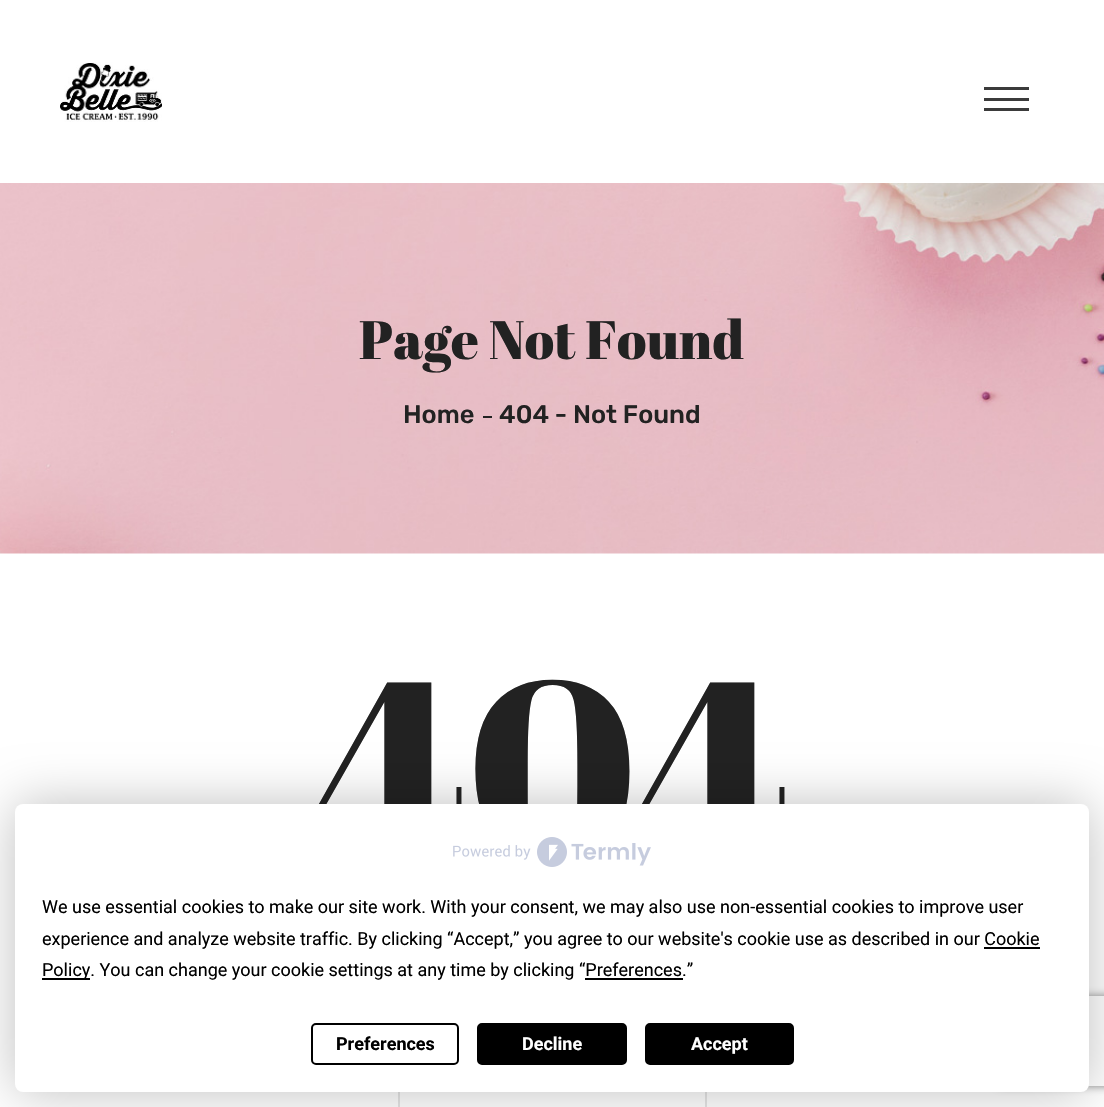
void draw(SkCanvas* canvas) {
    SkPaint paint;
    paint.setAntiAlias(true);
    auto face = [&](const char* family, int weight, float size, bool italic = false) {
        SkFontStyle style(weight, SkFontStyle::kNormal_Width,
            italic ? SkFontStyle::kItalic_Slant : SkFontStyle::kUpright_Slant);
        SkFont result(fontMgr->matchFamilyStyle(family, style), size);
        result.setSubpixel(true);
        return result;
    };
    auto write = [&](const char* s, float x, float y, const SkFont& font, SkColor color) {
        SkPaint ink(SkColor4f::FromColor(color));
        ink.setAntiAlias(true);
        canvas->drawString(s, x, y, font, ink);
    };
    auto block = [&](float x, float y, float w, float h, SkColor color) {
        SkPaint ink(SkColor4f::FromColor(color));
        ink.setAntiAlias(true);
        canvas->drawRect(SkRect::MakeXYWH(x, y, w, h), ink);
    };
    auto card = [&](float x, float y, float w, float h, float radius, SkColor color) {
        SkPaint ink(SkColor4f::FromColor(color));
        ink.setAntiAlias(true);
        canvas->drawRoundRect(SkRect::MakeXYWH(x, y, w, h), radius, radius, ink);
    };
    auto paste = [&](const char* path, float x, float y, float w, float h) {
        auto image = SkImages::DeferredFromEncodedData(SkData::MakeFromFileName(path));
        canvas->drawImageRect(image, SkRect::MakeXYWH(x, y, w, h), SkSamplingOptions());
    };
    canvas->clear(SK_ColorWHITE);
    paste("pic1.png", 60, 62, 102, 60);
    block(984, 87, 45, 3, SkColorSetRGB(59, 59, 59));
    block(984, 98, 45, 3, SkColorSetRGB(59, 59, 59));
    block(984, 108, 45, 3, SkColorSetRGB(59, 59, 59));
    paste("pic2.png", 0, 183, 1104, 371);
    auto kFont1 = face("Abril Fatface", 400, 54);
    write("Page Not Found", 359, 359, kFont1, SkColorSetRGB(34, 34, 34));
    auto kFont2 = face("Rubik", 500, 25.5f);
    write("Home", 403, 423, kFont2, SkColorSetRGB(34, 34, 34));
    block(483, 416, 9, 2, SkColorSetRGB(34, 34, 34));
    write("404 - Not Found", 499, 423, kFont2, SkColorSetRGB(34, 34, 34));
    auto kFont3 = face("Abril Fatface", 400, 255);
    write("404", 314, 861, kFont3, SkColorSetRGB(34, 34, 34));
    paint.setStyle(SkPaint::kStroke_Style);
    paint.setStrokeWidth(2);
    paint.setColor(SkColorSetRGB(229, 229, 229));
    canvas->drawRect(SkRect::MakeXYWH(399, 1071, 307, 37), paint);
    paint.setStyle(SkPaint::kFill_Style);
    paint.setColor(SkColorSetARGB(64, 0, 0, 0));
    paint.setMaskFilter(SkMaskFilter::MakeBlur(kNormal_SkBlurStyle, 26));
    canvas->drawRoundRect(SkRect::MakeXYWH(15, 804, 1074, 288), 8, 8, paint);
    paint.setMaskFilter(nullptr);
    canvas->save();
    canvas->clipPath(SkPathBuilder(SkPathFillType::kEvenOdd).moveTo(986, 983).lineTo(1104, 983).lineTo(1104, 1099).lineTo(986, 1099).close().moveTo(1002, 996).lineTo(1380, 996).cubicTo(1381.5f, 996, 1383, 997.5f, 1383, 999).lineTo(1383, 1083).cubicTo(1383, 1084.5f, 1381.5f, 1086, 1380, 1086).lineTo(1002, 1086).cubicTo(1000.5f, 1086, 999, 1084.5f, 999, 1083).lineTo(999, 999).cubicTo(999, 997.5f, 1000.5f, 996, 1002, 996).close().detach(), true);
    paint.setColor(SkColorSetRGB(128, 128, 128));
    paint.setMaskFilter(SkMaskFilter::MakeBlur(kNormal_SkBlurStyle, 4));
    canvas->drawRoundRect(SkRect::MakeXYWH(999, 996, 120, 90), 3, 3, paint);
    paint.setMaskFilter(nullptr);
    canvas->restore();
    card(15, 804, 1074, 288, 8, SK_ColorWHITE);
    paste("pic3.png", 453, 837, 198, 30);
    auto kFont4 = face("Roboto", 400, 18);
    write("We use essential cookies to make our site work. With your consent, we may also use non-essential cookies to improve user", 42, 913, kFont4, SK_ColorBLACK);
    write("experience and analyze website traffic. By clicking “Accept,” you agree to our website's cookie use as described in our Cookie", 42, 945, kFont4, SK_ColorBLACK);
    block(42, 978, 48, 2, SK_ColorBLACK);
    write("Policy. You can change your cookie settings at any time by clicking “Preferences.”", 42, 976, kFont4, SK_ColorBLACK);
    block(984, 947, 56, 2, SK_ColorBLACK);
    block(585, 978, 98, 2, SK_ColorBLACK);
    paint.setStyle(SkPaint::kStroke_Style);
    paint.setColor(SK_ColorBLACK);
    canvas->drawRoundRect(SkRect::MakeXYWH(312, 1024, 146, 40), 4, 4, paint);
    auto kFont5 = face("Roboto", 700, 18);
    write("Preferences", 336, 1050, kFont5, SK_ColorBLACK);
    paint.setStyle(SkPaint::kFill_Style);
    canvas->drawRoundRect(SkRect::MakeXYWH(478, 1024, 148, 40), 4, 4, paint);
    paint.setStyle(SkPaint::kStroke_Style);
    canvas->drawRoundRect(SkRect::MakeXYWH(478, 1024, 148, 40), 4, 4, paint);
    write("Decline", 522, 1050, kFont5, SK_ColorWHITE);
    paint.setStyle(SkPaint::kFill_Style);
    canvas->drawRoundRect(SkRect::MakeXYWH(646, 1024, 147, 40), 4, 4, paint);
    paint.setStyle(SkPaint::kStroke_Style);
    canvas->drawRoundRect(SkRect::MakeXYWH(646, 1024, 147, 40), 4, 4, paint);
    write("Accept", 691, 1050, kFont5, SK_ColorWHITE);
}
